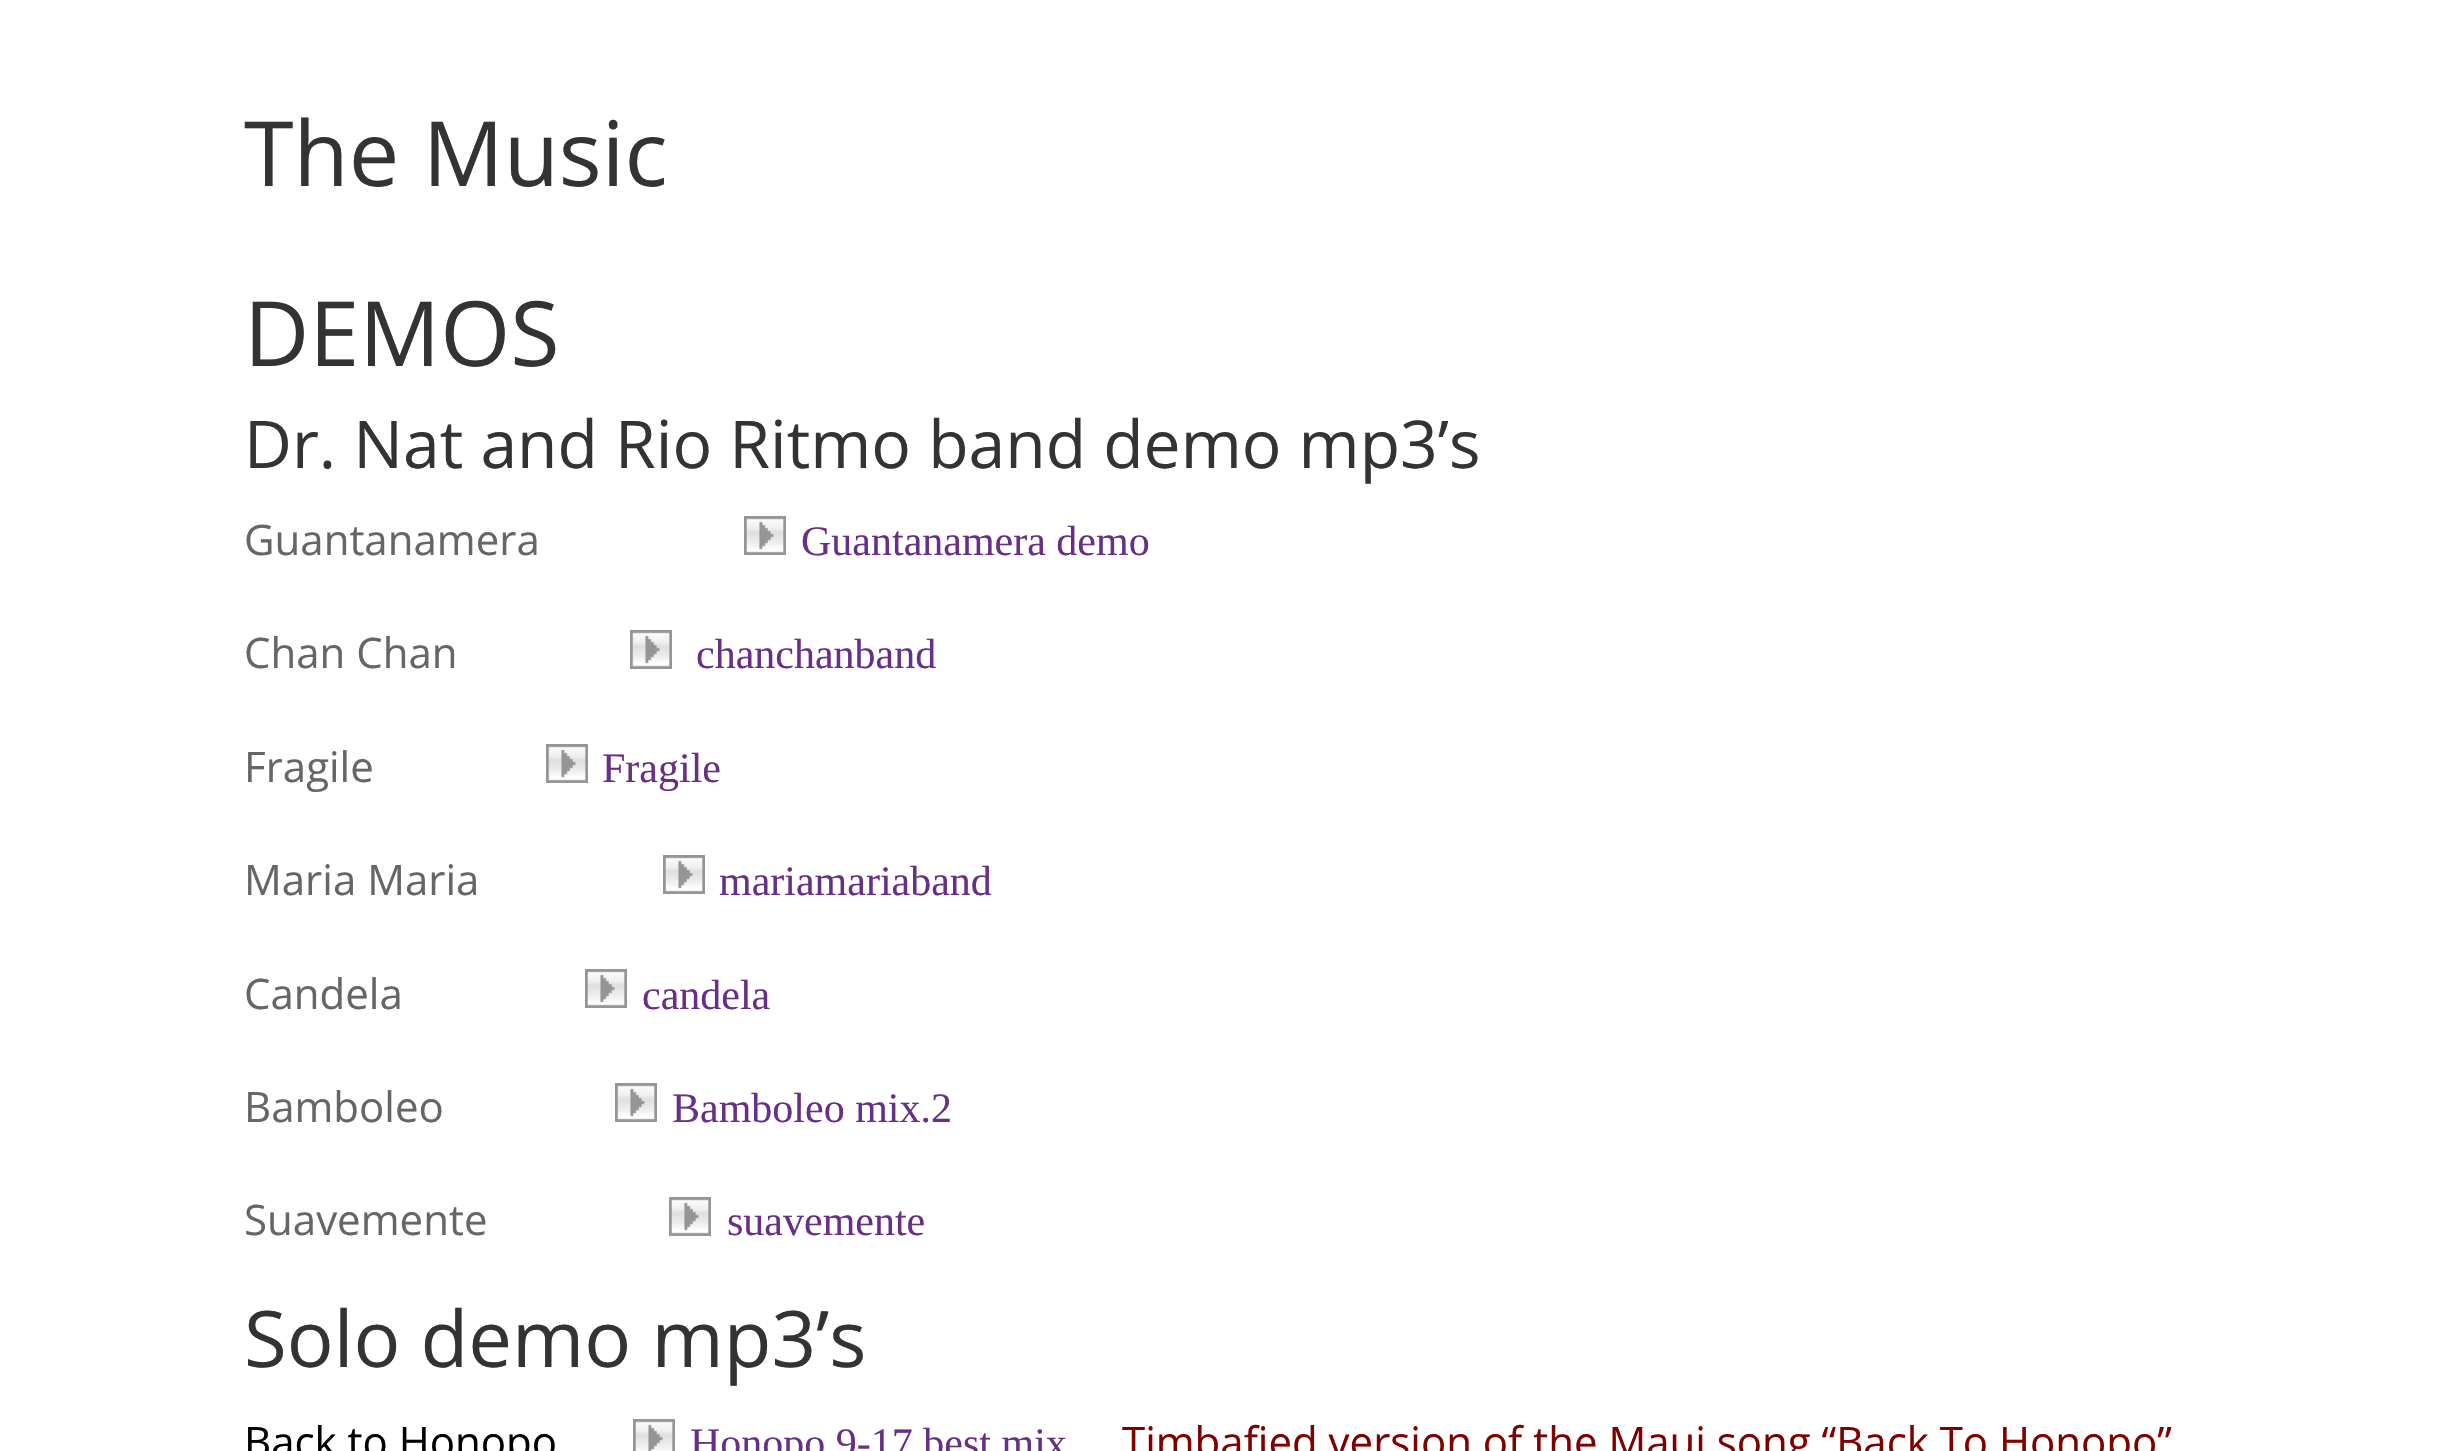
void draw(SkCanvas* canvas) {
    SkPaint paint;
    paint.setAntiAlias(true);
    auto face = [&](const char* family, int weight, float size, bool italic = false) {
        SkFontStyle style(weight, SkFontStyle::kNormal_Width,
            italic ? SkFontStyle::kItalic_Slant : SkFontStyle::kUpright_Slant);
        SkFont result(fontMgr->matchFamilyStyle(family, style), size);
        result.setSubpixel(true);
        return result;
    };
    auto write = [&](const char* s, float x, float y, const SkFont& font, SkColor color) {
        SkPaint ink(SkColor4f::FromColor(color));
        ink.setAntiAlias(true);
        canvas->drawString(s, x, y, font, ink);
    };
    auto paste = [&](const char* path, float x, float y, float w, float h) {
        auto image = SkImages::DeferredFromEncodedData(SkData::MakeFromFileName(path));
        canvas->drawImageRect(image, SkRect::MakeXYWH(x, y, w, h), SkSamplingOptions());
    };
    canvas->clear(SK_ColorWHITE);
    auto kFont1 = face("Open Sans", 400, 90);
    write("The Music", 244, 186, kFont1, SkColorSetRGB(51, 51, 51));
    write("DEMOS", 244, 366, kFont1, SkColorSetRGB(51, 51, 51));
    auto kFont2 = face("Open Sans", 400, 66);
    write("Dr. Nat and Rio Ritmo band demo mp3’s", 244, 468, kFont2, SkColorSetRGB(51, 51, 51));
    auto kFont3 = face("Open Sans", 400, 42);
    write("Guantanamera", 244, 555, kFont3, SkColorSetRGB(102, 102, 102));
    paste("pic1.png", 744, 516, 42, 39);
    auto kFont4 = face("Liberation Serif", 400, 42);
    write("Guantanamera demo", 801, 555, kFont4, SkColorSetRGB(103, 47, 135));
    write("Chan Chan", 244, 668, kFont3, SkColorSetRGB(102, 102, 102));
    paste("pic2.png", 630, 630, 42, 39);
    write("chanchanband", 696, 668, kFont4, SkColorSetRGB(103, 47, 135));
    write("Fragile", 244, 782, kFont3, SkColorSetRGB(102, 102, 102));
    paste("pic2.png", 546, 744, 42, 39);
    write("Fragile", 602, 782, kFont4, SkColorSetRGB(103, 47, 135));
    write("Maria Maria", 244, 895, kFont3, SkColorSetRGB(102, 102, 102));
    paste("pic1.png", 663, 855, 42, 39);
    write("mariamariaband", 719, 895, kFont4, SkColorSetRGB(103, 47, 135));
    write("Candela", 244, 1009, kFont3, SkColorSetRGB(102, 102, 102));
    paste("pic1.png", 585, 969, 42, 39);
    write("candela", 642, 1009, kFont4, SkColorSetRGB(103, 47, 135));
    write("Bamboleo", 244, 1122, kFont3, SkColorSetRGB(102, 102, 102));
    paste("pic2.png", 615, 1083, 42, 39);
    write("Bamboleo mix.2", 672, 1122, kFont4, SkColorSetRGB(103, 47, 135));
    write("Suavemente", 244, 1235, kFont3, SkColorSetRGB(102, 102, 102));
    paste("pic1.png", 669, 1197, 42, 39);
    write("suavemente", 727, 1235, kFont4, SkColorSetRGB(103, 47, 135));
    auto kFont5 = face("Open Sans", 400, 78);
    write("Solo demo mp3’s", 244, 1367, kFont5, SkColorSetRGB(51, 51, 51));
    write("Back to Honopo", 244, 1457, kFont3, SK_ColorBLACK);
    paste("pic3.png", 633, 1419, 42, 32);
    write("Honopo 9-17 best mix", 690, 1457, kFont4, SkColorSetRGB(103, 47, 135));
    write("Timbafied version of the Maui song “Back To Honopo”", 1122, 1457, kFont3, SkColorSetRGB(128, 0, 0));
}
